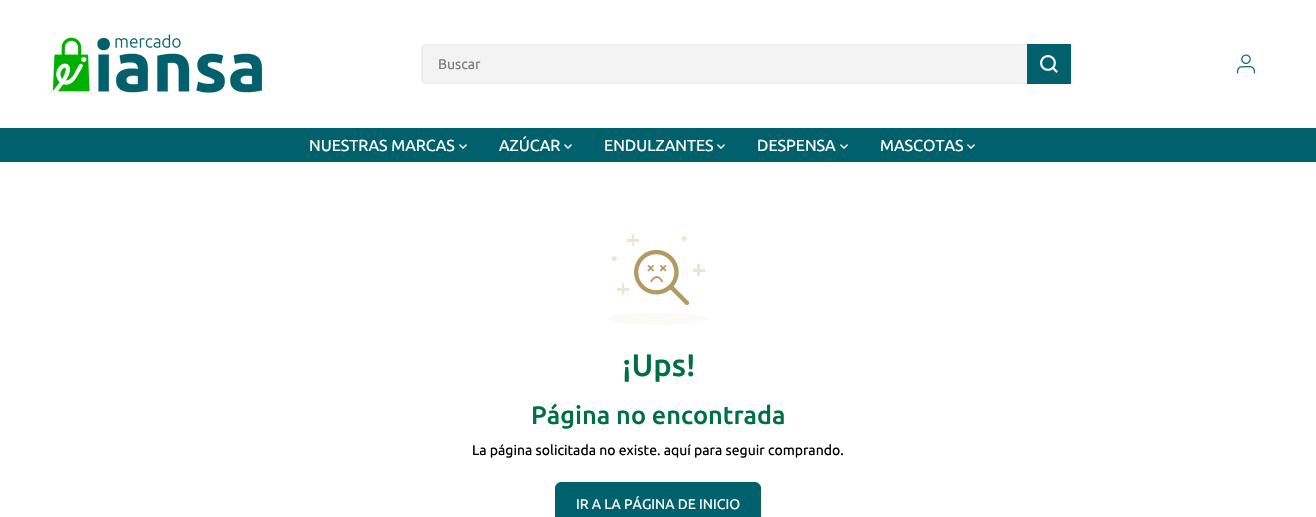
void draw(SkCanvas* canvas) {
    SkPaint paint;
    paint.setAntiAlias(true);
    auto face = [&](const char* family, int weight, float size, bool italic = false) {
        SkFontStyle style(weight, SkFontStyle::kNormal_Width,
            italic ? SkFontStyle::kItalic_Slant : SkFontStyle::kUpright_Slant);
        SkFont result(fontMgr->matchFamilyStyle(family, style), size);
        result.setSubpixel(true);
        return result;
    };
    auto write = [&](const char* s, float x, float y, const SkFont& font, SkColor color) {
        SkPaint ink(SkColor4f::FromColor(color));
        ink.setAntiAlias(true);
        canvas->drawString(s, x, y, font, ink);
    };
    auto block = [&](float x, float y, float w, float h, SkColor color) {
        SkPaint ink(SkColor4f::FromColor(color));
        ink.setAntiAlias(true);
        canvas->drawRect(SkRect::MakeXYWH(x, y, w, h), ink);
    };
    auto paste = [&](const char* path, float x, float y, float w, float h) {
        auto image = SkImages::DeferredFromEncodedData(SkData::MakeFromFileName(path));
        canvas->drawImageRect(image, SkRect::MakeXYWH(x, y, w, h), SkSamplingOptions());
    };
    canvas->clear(SK_ColorWHITE);
    paste("pic1.png", 52, 34, 211, 59);
    paint.setColor(SkColorSetRGB(243, 243, 243));
    canvas->drawRoundRect(SkRect::MakeXYWH(422, 45, 648, 38), 4, 4, paint);
    paint.setStyle(SkPaint::kStroke_Style);
    paint.setStrokeWidth(2);
    paint.setColor(SkColorSetRGB(237, 237, 237));
    canvas->drawRoundRect(SkRect::MakeXYWH(422, 45, 648, 38), 4, 4, paint);
    auto kFont1 = face("Ubuntu", 400, 14);
    write("Buscar", 438, 69, kFont1, SkColorSetRGB(122, 122, 122));
    block(1027, 44, 44, 40, SkColorSetRGB(0, 97, 109));
    paste("pic2.png", 1040, 55, 18, 18);
    paste("pic3.png", 1237, 54, 18, 20);
    block(0, 128, 1316, 34, SkColorSetRGB(0, 97, 109));
    auto kFont2 = face("Ubuntu", 400, 16);
    write("NUESTRAS MARCAS", 309, 151, kFont2, SK_ColorWHITE);
    paste("pic4.png", 459, 144, 8, 5);
    write("AZÚCAR", 499, 151, kFont2, SK_ColorWHITE);
    paste("pic4.png", 564, 144, 8, 5);
    write("ENDULZANTES", 604, 151, kFont2, SK_ColorWHITE);
    paste("pic4.png", 717, 144, 8, 5);
    write("DESPENSA", 757, 151, kFont2, SK_ColorWHITE);
    paste("pic4.png", 840, 144, 8, 5);
    write("MASCOTAS", 880, 151, kFont2, SK_ColorWHITE);
    paste("pic4.png", 967, 144, 8, 5);
    paste("pic5.png", 608, 234, 100, 91);
    auto kFont3 = face("Ubuntu", 500, 31);
    write("¡Ups!", 622, 376, kFont3, SkColorSetRGB(0, 111, 68));
    auto kFont4 = face("Ubuntu", 500, 25.25f);
    write("Página no encontrada", 531, 424, kFont4, SkColorSetRGB(0, 111, 68));
    write("La página solicitada no existe. aquí para seguir comprando.", 472, 455, kFont1, SK_ColorBLACK);
    paint.setStyle(SkPaint::kFill_Style);
    paint.setColor(SkColorSetRGB(0, 97, 109));
    canvas->drawRoundRect(SkRect::MakeXYWH(555.5f, 482.5f, 205, 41), 5.5f, 5.5f, paint);
    paint.setStyle(SkPaint::kStroke_Style);
    paint.setStrokeWidth(1);
    canvas->drawRoundRect(SkRect::MakeXYWH(555.5f, 482.5f, 205, 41), 5.5f, 5.5f, paint);
    write("IR A LA PÁGINA DE INICIO", 576, 509, kFont1, SK_ColorWHITE);
}
